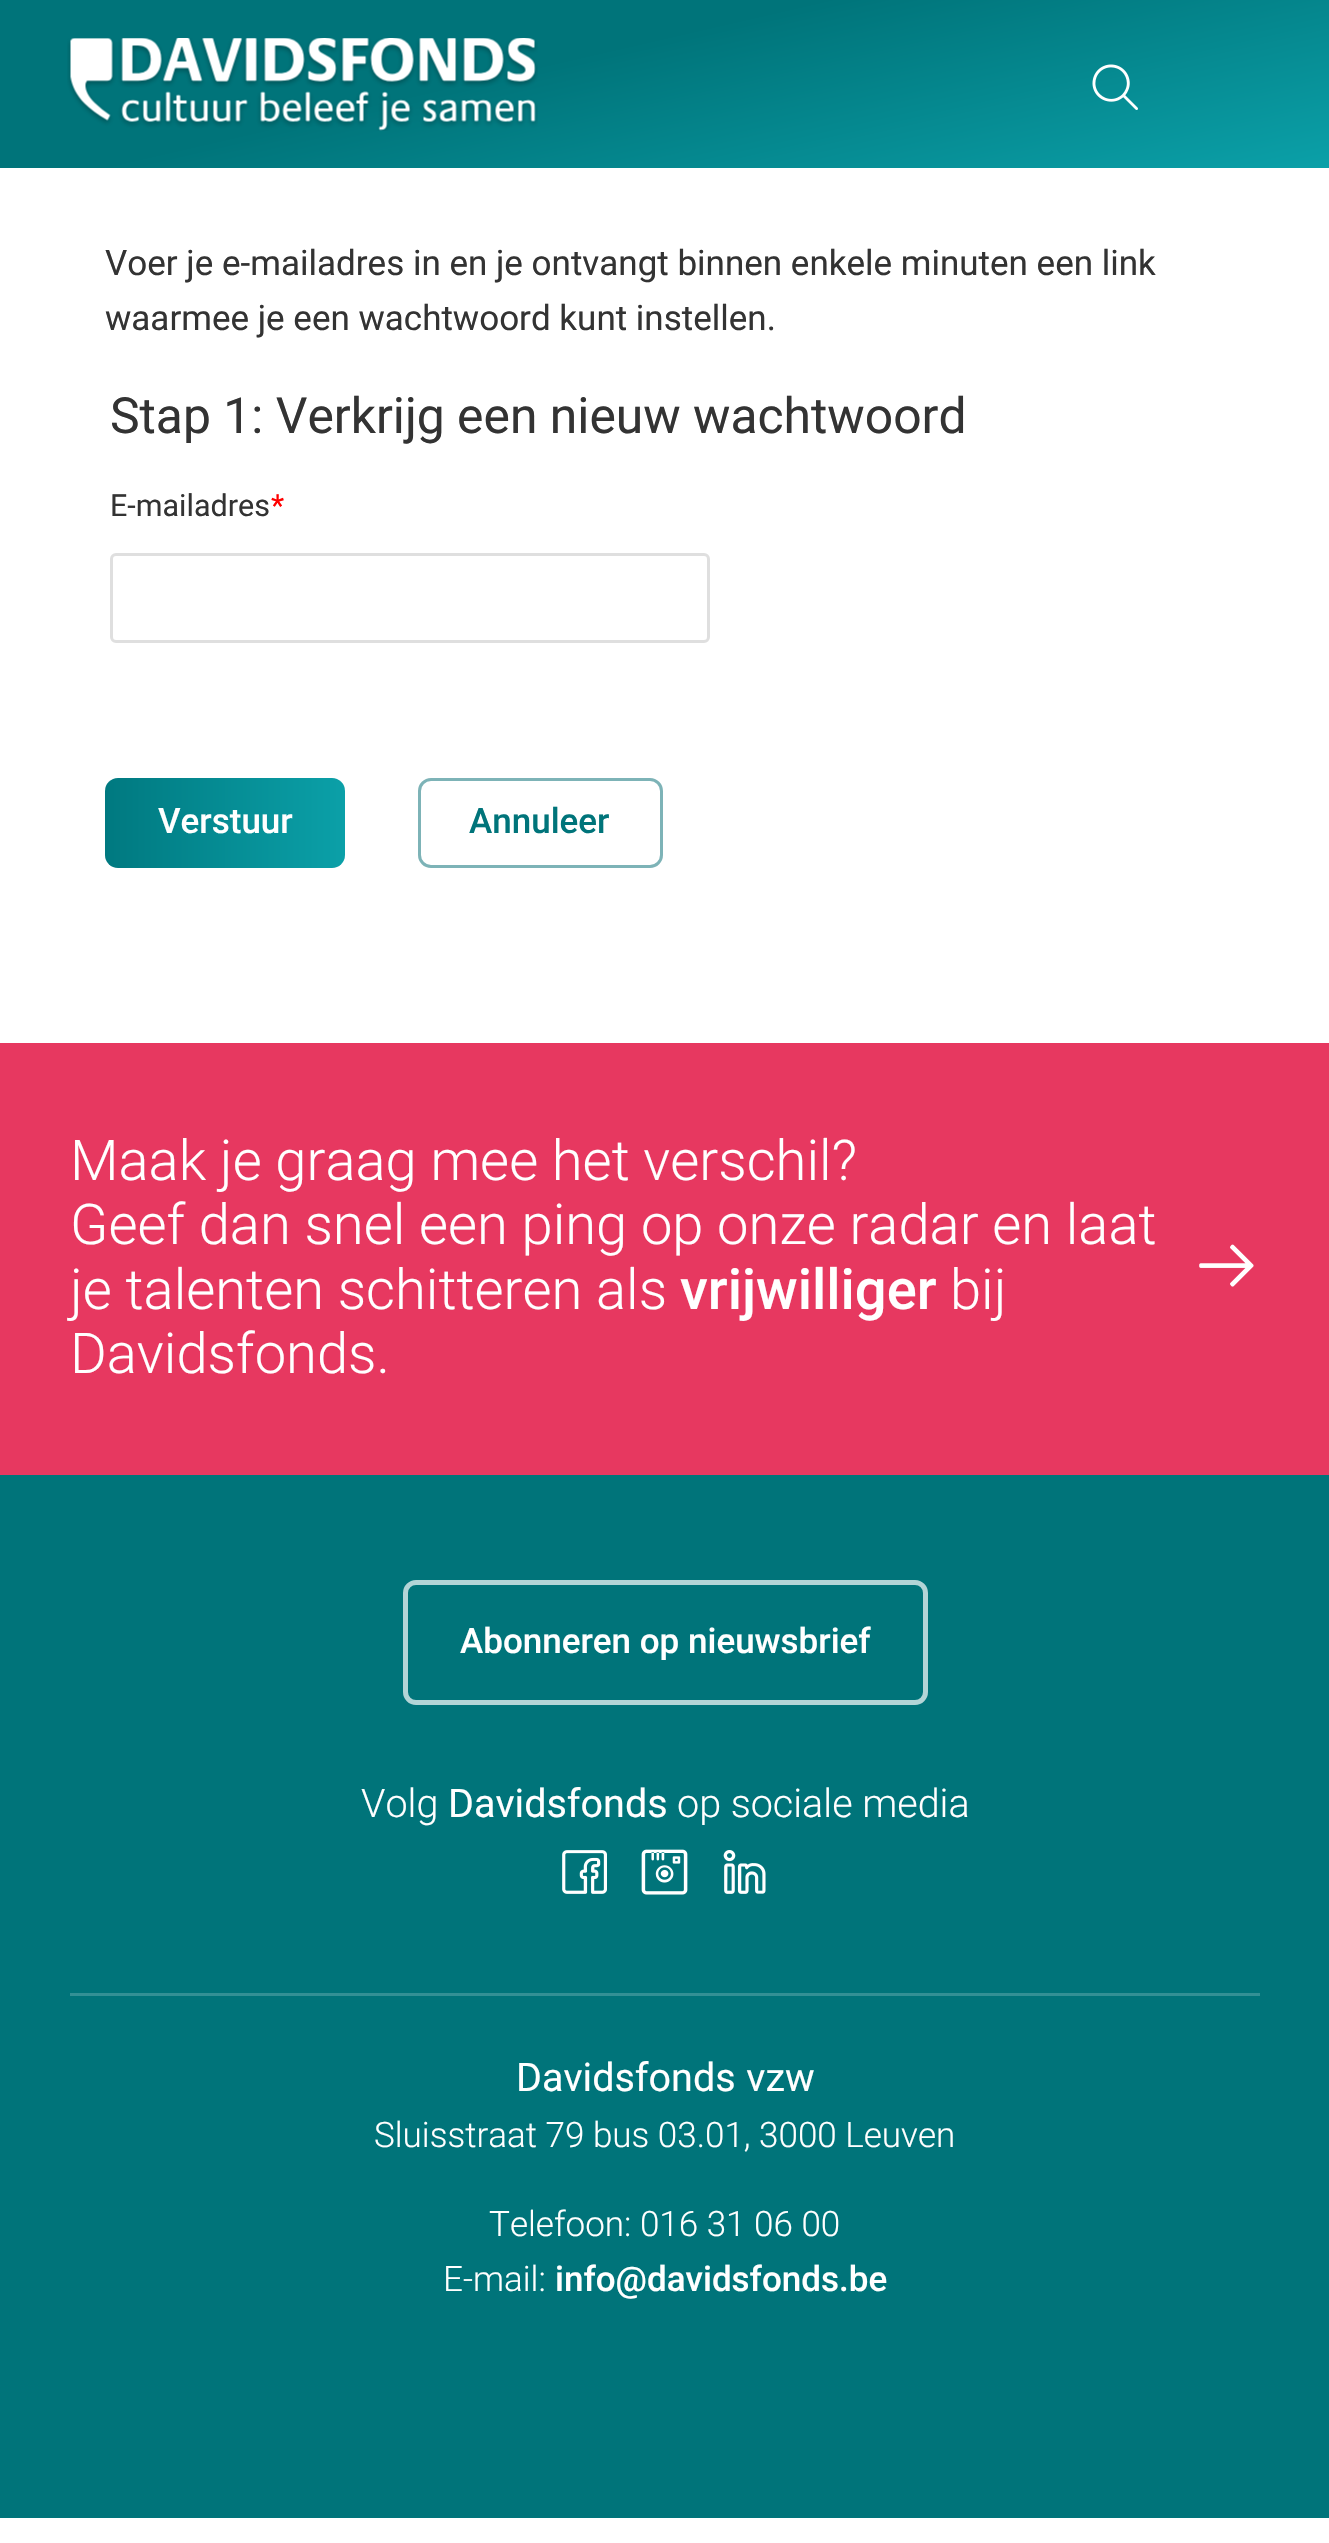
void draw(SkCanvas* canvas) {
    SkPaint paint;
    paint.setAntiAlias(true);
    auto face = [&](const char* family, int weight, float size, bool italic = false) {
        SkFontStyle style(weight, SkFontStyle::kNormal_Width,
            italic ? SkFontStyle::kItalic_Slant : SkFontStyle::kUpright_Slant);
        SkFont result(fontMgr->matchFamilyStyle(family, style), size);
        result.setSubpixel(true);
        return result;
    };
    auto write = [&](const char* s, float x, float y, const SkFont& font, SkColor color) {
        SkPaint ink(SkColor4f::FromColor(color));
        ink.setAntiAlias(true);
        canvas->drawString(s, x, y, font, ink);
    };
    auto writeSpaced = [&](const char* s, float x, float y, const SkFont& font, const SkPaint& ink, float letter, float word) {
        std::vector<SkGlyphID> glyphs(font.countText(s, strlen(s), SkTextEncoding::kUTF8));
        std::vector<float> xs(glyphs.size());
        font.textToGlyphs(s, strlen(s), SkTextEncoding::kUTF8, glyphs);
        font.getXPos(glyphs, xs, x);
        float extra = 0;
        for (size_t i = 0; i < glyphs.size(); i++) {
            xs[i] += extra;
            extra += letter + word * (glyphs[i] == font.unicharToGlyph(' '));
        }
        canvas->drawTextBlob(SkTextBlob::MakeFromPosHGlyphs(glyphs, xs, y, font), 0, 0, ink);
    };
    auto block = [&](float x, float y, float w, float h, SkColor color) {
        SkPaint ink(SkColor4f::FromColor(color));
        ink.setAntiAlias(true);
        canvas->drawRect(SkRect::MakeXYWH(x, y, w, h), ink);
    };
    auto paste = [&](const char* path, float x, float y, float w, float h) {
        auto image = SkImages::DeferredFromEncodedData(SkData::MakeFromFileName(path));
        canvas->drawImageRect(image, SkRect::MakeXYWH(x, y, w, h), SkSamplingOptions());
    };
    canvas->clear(SK_ColorWHITE);
    {
        const SkColor colors[] = {SkColorSetRGB(0, 116, 122), SkColorSetRGB(11, 160, 168)};
        const float stops[] = {0.4f, 1};
        const SkPoint ends[] = {{613, -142}, {717, 309}};
        paint.setShader(SkGradientShader::MakeLinear(ends, colors, stops, 2, SkTileMode::kClamp));
        paint.setAlpha(255);
    }
    canvas->drawRect(SkRect::MakeXYWH(0, 0, 1329, 168), paint);
    paste("pic1.png", 67, 38, 471, 93);
    paste("pic2.png", 1092, 64, 46, 46);
    auto kFont1 = face("Roboto", 400, 35);
    write("Voer je e-mailadres in en je ontvangt binnen enkele minuten een link", 105, 275, kFont1, SkColorSetRGB(51, 51, 51));
    write("waarmee je een wachtwoord kunt instellen.", 105, 330, kFont1, SkColorSetRGB(51, 51, 51));
    auto kFont2 = face("Roboto", 400, 49.8f);
    write("Stap 1: Verkrijg een nieuw wachtwoord", 110, 433, kFont2, SkColorSetRGB(51, 51, 51));
    auto kFont3 = face("Roboto", 400, 30.5f);
    write("E-mailadres", 110, 516, kFont3, SkColorSetRGB(51, 51, 51));
    write("*", 271, 516, kFont3, SkColorSetRGB(255, 0, 0));
    paint.setStyle(SkPaint::kStroke_Style);
    paint.setStrokeWidth(3);
    paint.setShader(nullptr);
    paint.setColor(SkColorSetRGB(223, 223, 223));
    canvas->drawRoundRect(SkRect::MakeXYWH(111.5f, 554.5f, 597, 87), 4.5f, 4.5f, paint);
    paint.setStyle(SkPaint::kFill_Style);
    {
        const SkColor colors[] = {SkColorSetRGB(0, 121, 128), SkColorSetRGB(11, 160, 168)};
        const float stops[] = {0, 1};
        const SkPoint ends[] = {{105, 823}, {345, 823}};
        paint.setShader(SkGradientShader::MakeLinear(ends, colors, stops, 2, SkTileMode::kClamp));
        paint.setAlpha(255);
    }
    canvas->drawRoundRect(SkRect::MakeXYWH(105, 778, 240, 90), 13, 13, paint);
    auto kFont4 = face("Roboto", 500, 35);
    write("Verstuur", 158, 833, kFont4, SK_ColorWHITE);
    paint.setStyle(SkPaint::kStroke_Style);
    paint.setShader(nullptr);
    paint.setColor(SkColorSetRGB(125, 179, 183));
    canvas->drawRoundRect(SkRect::MakeXYWH(419.5f, 779.5f, 242, 87), 11.5f, 11.5f, paint);
    write("Annuleer", 469, 833, kFont4, SkColorSetRGB(0, 116, 122));
    block(0, 1043, 1329, 432, SkColorSetRGB(231, 56, 96));
    auto kFont5 = face("Roboto", 300, 56.1f);
    write("Maak je graag mee het verschil?", 70, 1180, kFont5, SK_ColorWHITE);
    write("Geef dan snel een ping op onze radar en laat", 70, 1244, kFont5, SK_ColorWHITE);
    write("je talenten schitteren als", 70, 1309, kFont5, SK_ColorWHITE);
    auto kFont6 = face("Roboto", 500, 56.1f);
    write("vrijwilliger", 680, 1309, kFont6, SK_ColorWHITE);
    write("bij", 950, 1309, kFont5, SK_ColorWHITE);
    write("Davidsfonds.", 70, 1373, kFont5, SK_ColorWHITE);
    paste("pic3.png", 1199, 1244, 55, 43);
    block(0, 1475, 1329, 1043, SkColorSetRGB(0, 116, 122));
    paint.setStrokeWidth(5);
    paint.setColor(SkColorSetRGB(179, 213, 215));
    canvas->drawRoundRect(SkRect::MakeXYWH(405.5f, 1582.5f, 520, 120), 10.5f, 10.5f, paint);
    write("Abonneren op nieuwsbrief", 460, 1653, kFont4, SK_ColorWHITE);
    block(70, 1993, 1190, 3, SkColorSetRGB(51, 144, 149));
    auto kFont7 = face("Roboto", 300, 39.5f);
    write("Volg", 361, 1817, kFont7, SK_ColorWHITE);
    auto kFont8 = face("Roboto", 400, 39.5f);
    write("Davidsfonds", 448, 1817, kFont8, SK_ColorWHITE);
    write("op sociale media", 677, 1817, kFont7, SK_ColorWHITE);
    paste("pic4.png", 562, 1850, 45, 44);
    paste("pic5.png", 641, 1849, 47, 46);
    paste("pic6.png", 723, 1850, 43, 44);
    paint.setStyle(SkPaint::kFill_Style);
    paint.setColor(SK_ColorWHITE);
    writeSpaced("Davidsfonds vzw", 516, 2091, kFont8, paint, 0, 1);
    auto kFont9 = face("Roboto", 300, 35);
    write("Sluisstraat 79 bus 03.01, 3000 Leuven", 374, 2147, kFont9, SK_ColorWHITE);
    write("Telefoon: 016 31 06 00", 489, 2236, kFont9, SK_ColorWHITE);
    write("E-mail:", 443, 2291, kFont9, SK_ColorWHITE);
    write("info@davidsfonds.be", 555, 2291, kFont4, SK_ColorWHITE);
}
